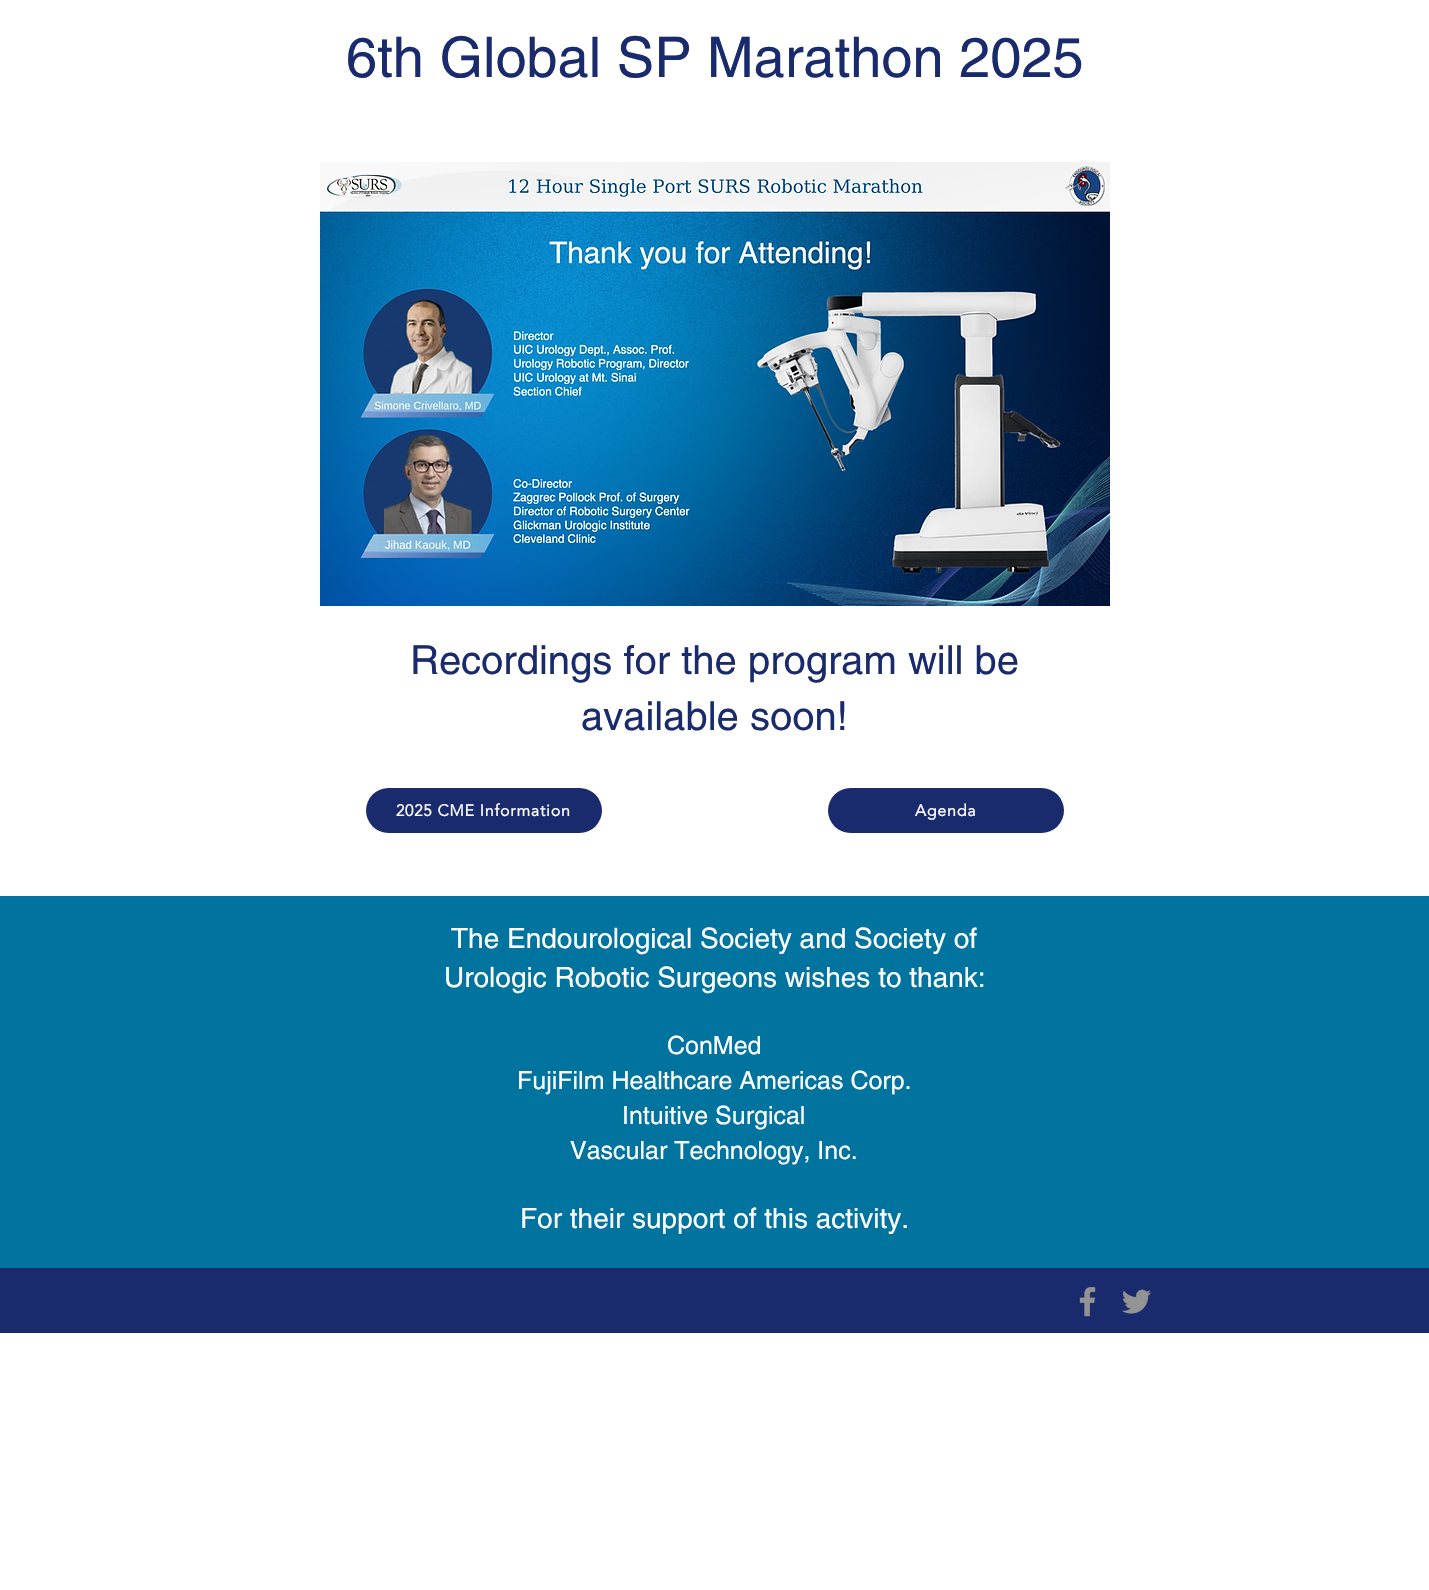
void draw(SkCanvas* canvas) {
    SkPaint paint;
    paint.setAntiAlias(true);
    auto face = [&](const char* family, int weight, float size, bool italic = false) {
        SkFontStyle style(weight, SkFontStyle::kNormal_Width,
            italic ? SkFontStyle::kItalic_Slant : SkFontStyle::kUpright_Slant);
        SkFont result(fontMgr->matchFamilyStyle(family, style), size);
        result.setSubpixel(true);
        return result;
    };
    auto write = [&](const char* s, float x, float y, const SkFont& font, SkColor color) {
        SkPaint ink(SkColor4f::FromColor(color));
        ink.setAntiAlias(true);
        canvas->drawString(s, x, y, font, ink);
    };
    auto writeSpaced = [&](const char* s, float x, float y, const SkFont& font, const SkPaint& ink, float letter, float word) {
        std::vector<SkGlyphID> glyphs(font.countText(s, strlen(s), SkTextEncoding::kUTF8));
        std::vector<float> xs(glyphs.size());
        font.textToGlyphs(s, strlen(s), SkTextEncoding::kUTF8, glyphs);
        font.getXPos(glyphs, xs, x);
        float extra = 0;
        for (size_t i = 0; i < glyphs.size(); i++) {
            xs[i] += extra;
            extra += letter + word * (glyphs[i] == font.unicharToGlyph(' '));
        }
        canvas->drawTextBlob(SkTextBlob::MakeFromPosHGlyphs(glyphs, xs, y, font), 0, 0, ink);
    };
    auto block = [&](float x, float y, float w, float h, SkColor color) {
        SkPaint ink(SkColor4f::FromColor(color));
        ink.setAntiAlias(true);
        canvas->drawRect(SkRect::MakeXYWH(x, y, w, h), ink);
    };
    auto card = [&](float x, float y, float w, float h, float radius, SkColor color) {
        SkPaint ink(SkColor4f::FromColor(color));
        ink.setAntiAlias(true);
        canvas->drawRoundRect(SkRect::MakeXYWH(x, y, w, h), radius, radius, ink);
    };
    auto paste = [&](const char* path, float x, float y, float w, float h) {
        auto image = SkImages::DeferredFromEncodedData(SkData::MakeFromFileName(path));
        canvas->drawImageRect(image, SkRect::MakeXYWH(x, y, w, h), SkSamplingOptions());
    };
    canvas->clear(SK_ColorWHITE);
    auto kFont1 = face("helvetica", 400, 56);
    write("6th Global SP Marathon 2025", 346, 77, kFont1, SkColorSetRGB(26, 43, 109));
    paste("pic1.png", 320, 162, 790, 444);
    auto kFont2 = face("helvetica", 400, 40);
    write("Recordings for the program will be", 410, 674, kFont2, SkColorSetRGB(26, 43, 109));
    write("available soon!", 581, 730, kFont2, SkColorSetRGB(26, 43, 109));
    card(366, 788, 236, 45, 22.5f, SkColorSetRGB(26, 43, 109));
    auto kFont3 = face("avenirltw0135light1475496", 700, 16);
    paint.setColor(SK_ColorWHITE);
    writeSpaced("2025 CME Information", 396, 816, kFont3, paint, 0.8f, 0);
    card(828, 788, 236, 45, 22.5f, SkColorSetRGB(26, 43, 109));
    writeSpaced("Agenda", 915, 816, kFont3, paint, 0.8f, 0);
    block(0, 896, 1429, 372, SkColorSetRGB(0, 115, 159));
    auto kFont4 = face("helvetica", 400, 28);
    write("The Endourological Society and Society of", 451, 948, kFont4, SK_ColorWHITE);
    write("Urologic Robotic Surgeons wishes to thank:", 444, 987, kFont4, SK_ColorWHITE);
    auto kFont5 = face("helvetica", 400, 25);
    write("ConMed", 667, 1054, kFont5, SK_ColorWHITE);
    write("FujiFilm Healthcare Americas Corp.", 517, 1089, kFont5, SK_ColorWHITE);
    write("Intuitive Surgical", 622, 1124, kFont5, SK_ColorWHITE);
    write("Vascular Technology, Inc.", 570, 1159, kFont5, SK_ColorWHITE);
    write("For their support of this activity.", 520, 1228, kFont4, SK_ColorWHITE);
    block(0, 1268, 1429, 65, SkColorSetRGB(26, 43, 109));
    paste("pic2.png", 1079, 1287, 17, 30);
    paste("pic3.png", 1122, 1289, 30, 25);
}
